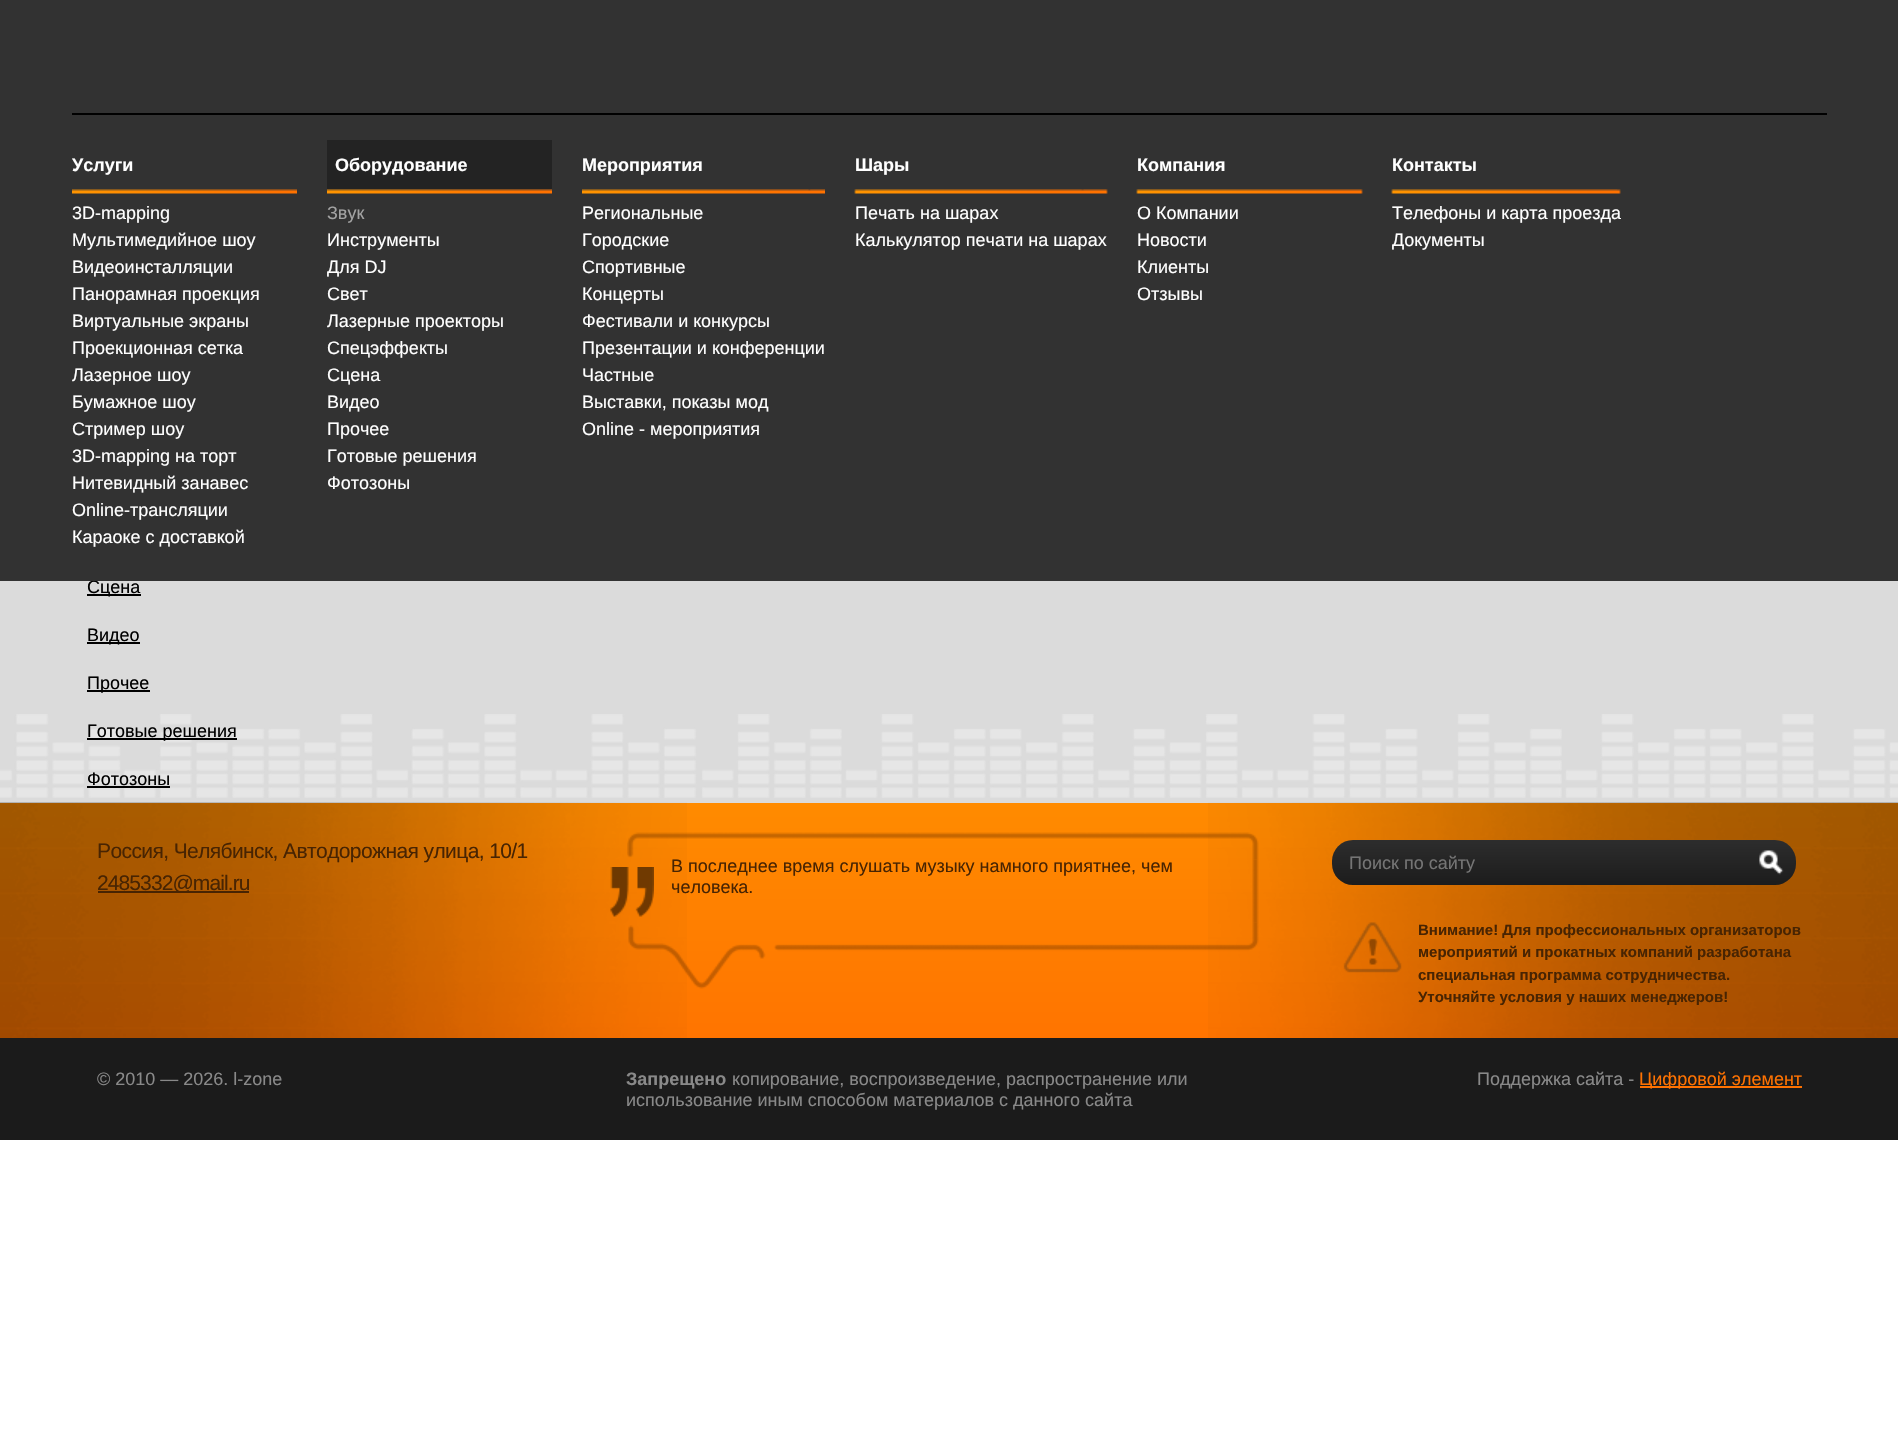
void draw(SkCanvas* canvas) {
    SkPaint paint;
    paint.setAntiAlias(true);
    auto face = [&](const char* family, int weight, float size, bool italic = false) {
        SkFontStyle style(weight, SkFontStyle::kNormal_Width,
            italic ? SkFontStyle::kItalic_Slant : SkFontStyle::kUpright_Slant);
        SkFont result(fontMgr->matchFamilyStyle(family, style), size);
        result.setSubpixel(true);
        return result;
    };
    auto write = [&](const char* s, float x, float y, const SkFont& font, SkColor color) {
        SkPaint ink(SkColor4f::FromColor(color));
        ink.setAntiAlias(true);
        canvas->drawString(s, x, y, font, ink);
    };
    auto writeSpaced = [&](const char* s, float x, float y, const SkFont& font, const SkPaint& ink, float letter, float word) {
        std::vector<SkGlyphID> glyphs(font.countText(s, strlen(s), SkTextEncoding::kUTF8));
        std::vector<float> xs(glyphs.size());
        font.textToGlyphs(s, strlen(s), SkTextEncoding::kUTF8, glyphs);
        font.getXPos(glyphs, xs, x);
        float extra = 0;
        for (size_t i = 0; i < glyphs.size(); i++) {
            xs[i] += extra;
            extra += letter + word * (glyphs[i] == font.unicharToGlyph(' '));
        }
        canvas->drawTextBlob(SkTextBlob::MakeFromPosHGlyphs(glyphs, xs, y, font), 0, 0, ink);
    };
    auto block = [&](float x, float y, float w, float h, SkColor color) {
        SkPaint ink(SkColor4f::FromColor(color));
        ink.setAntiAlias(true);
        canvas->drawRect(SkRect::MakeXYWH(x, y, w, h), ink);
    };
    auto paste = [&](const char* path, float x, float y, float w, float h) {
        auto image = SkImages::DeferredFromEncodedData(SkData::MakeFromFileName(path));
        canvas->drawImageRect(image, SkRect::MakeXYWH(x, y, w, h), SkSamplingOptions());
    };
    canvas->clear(SK_ColorWHITE);
    block(0, 581, 1898, 222, SkColorSetRGB(219, 219, 219));
    block(87, 594, 54, 2, SK_ColorBLACK);
    auto kFont1 = face("Liberation Sans", 400, 18);
    write("Сцена", 87, 593, kFont1, SK_ColorBLACK);
    block(0, 0, 1898, 581, SkColorSetRGB(50, 50, 50));
    block(72, 113, 1755, 2, SK_ColorBLACK);
    auto kFont2 = face("Liberation Sans", 700, 18);
    write("Услуги", 72, 171, kFont2, SK_ColorWHITE);
    paste("pic1.png", 72, 189, 225, 5);
    write("3D-mapping", 72, 219, kFont1, SK_ColorWHITE);
    write("Мультимедийное шоу", 72, 246, kFont1, SK_ColorWHITE);
    write("Видеоинсталляции", 72, 273, kFont1, SK_ColorWHITE);
    write("Панорамная проекция", 72, 300, kFont1, SK_ColorWHITE);
    write("Виртуальные экраны", 72, 327, kFont1, SK_ColorWHITE);
    write("Проекционная сетка", 72, 354, kFont1, SK_ColorWHITE);
    write("Лазерное шоу", 72, 381, kFont1, SK_ColorWHITE);
    write("Бумажное шоу", 72, 408, kFont1, SK_ColorWHITE);
    write("Стример шоу", 72, 435, kFont1, SK_ColorWHITE);
    write("3D-mapping на торт", 72, 462, kFont1, SK_ColorWHITE);
    write("Нитевидный занавес", 72, 489, kFont1, SK_ColorWHITE);
    write("Online-трансляции", 72, 516, kFont1, SK_ColorWHITE);
    write("Караоке с доставкой", 72, 543, kFont1, SK_ColorWHITE);
    block(327, 140, 225, 49, SkColorSetRGB(35, 35, 35));
    write("Оборудование", 335, 171, kFont2, SK_ColorWHITE);
    paste("pic2.png", 327, 189, 225, 5);
    write("Звук", 327, 219, kFont1, SkColorSetRGB(163, 163, 163));
    write("Инструменты", 327, 246, kFont1, SK_ColorWHITE);
    write("Для DJ", 327, 273, kFont1, SK_ColorWHITE);
    write("Свет", 327, 300, kFont1, SK_ColorWHITE);
    write("Лазерные проекторы", 327, 327, kFont1, SK_ColorWHITE);
    write("Спецэффекты", 327, 354, kFont1, SK_ColorWHITE);
    write("Сцена", 327, 381, kFont1, SK_ColorWHITE);
    write("Видео", 327, 408, kFont1, SK_ColorWHITE);
    write("Прочее", 327, 435, kFont1, SK_ColorWHITE);
    write("Готовые решения", 327, 462, kFont1, SK_ColorWHITE);
    write("Фотозоны", 327, 489, kFont1, SK_ColorWHITE);
    write("Мероприятия", 582, 171, kFont2, SK_ColorWHITE);
    paste("pic3.png", 582, 189, 243, 5);
    write("Региональные", 582, 219, kFont1, SK_ColorWHITE);
    write("Городские", 582, 246, kFont1, SK_ColorWHITE);
    write("Спортивные", 582, 273, kFont1, SK_ColorWHITE);
    write("Концерты", 582, 300, kFont1, SK_ColorWHITE);
    write("Фестивали и конкурсы", 582, 327, kFont1, SK_ColorWHITE);
    write("Презентации и конференции", 582, 354, kFont1, SK_ColorWHITE);
    write("Частные", 582, 381, kFont1, SK_ColorWHITE);
    write("Выставки, показы мод", 582, 408, kFont1, SK_ColorWHITE);
    write("Online - мероприятия", 582, 435, kFont1, SK_ColorWHITE);
    write("Шары", 855, 171, kFont2, SK_ColorWHITE);
    paste("pic4.png", 854, 189, 254, 5);
    write("Печать на шарах", 855, 219, kFont1, SK_ColorWHITE);
    write("Калькулятор печати на шарах", 855, 246, kFont1, SK_ColorWHITE);
    write("Компания", 1137, 171, kFont2, SK_ColorWHITE);
    paste("pic5.png", 1136, 189, 227, 5);
    write("О Компании", 1137, 219, kFont1, SK_ColorWHITE);
    write("Новости", 1137, 246, kFont1, SK_ColorWHITE);
    write("Клиенты", 1137, 273, kFont1, SK_ColorWHITE);
    write("Отзывы", 1137, 300, kFont1, SK_ColorWHITE);
    write("Контакты", 1392, 171, kFont2, SK_ColorWHITE);
    paste("pic6.png", 1391, 189, 230, 5);
    write("Телефоны и карта проезда", 1392, 219, kFont1, SK_ColorWHITE);
    write("Документы", 1392, 246, kFont1, SK_ColorWHITE);
    block(87, 642, 53, 2, SK_ColorBLACK);
    write("Видео", 87, 641, kFont1, SK_ColorBLACK);
    block(87, 690, 63, 2, SK_ColorBLACK);
    write("Прочее", 87, 689, kFont1, SK_ColorBLACK);
    paste("pic7.png", 0, 714, 1898, 84);
    block(87, 738, 150, 2, SK_ColorBLACK);
    write("Готовые решения", 87, 737, kFont1, SK_ColorBLACK);
    write("Фотозоны", 87, 785, kFont1, SK_ColorBLACK);
    block(87, 786, 83, 2, SK_ColorBLACK);
    {
        const SkColor colors[] = {SkColorSetRGB(255, 139, 0), SkColorSetRGB(255, 116, 0)};
        const float stops[] = {0, 1};
        const SkPoint ends[] = {{950, 802}, {950, 1038}};
        paint.setShader(SkGradientShader::MakeLinear(ends, colors, stops, 2, SkTileMode::kClamp));
        paint.setAlpha(255);
    }
    canvas->drawRect(SkRect::MakeXYWH(0, 803, 1898, 235), paint);
    paste("pic8.png", 0, 802, 687, 236);
    paste("pic9.png", 1208, 802, 690, 236);
    auto kFont3 = face("Liberation Sans", 400, 21);
    paint.setShader(nullptr);
    paint.setColor(SkColorSetRGB(72, 36, 2));
    writeSpaced("Россия, Челябинск, Автодорожная улица, 10/1", 97, 858, kFont3, paint, -0.6f, 0);
    block(98, 891, 151, 2, SkColorSetRGB(72, 36, 2));
    writeSpaced("2485332@mail.ru", 97, 890, kFont3, paint, -0.9f, 0);
    write("В последнее время слушать музыку намного приятнее, чем", 671, 872, kFont1, SkColorSetRGB(72, 36, 2));
    paste("pic10.png", 627, 832, 632, 28);
    paste("pic11.png", 610, 867, 44, 50);
    write("человека.", 671, 893, kFont1, SkColorSetRGB(72, 36, 2));
    paste("pic12.png", 1252, 859, 7, 64);
    paste("pic13.png", 628, 922, 631, 67);
    {
        const SkColor colors[] = {SkColorSetRGB(45, 45, 45), SkColorSetRGB(28, 28, 28)};
        const float stops[] = {0, 1};
        const SkPoint ends[] = {{1564, 840}, {1564, 885}};
        paint.setShader(SkGradientShader::MakeLinear(ends, colors, stops, 2, SkTileMode::kClamp));
        paint.setAlpha(255);
    }
    canvas->drawRoundRect(SkRect::MakeXYWH(1332, 840, 464, 45), 21, 21, paint);
    write("Поиск по сайту", 1349, 869, kFont1, SkColorSetRGB(117, 117, 117));
    paste("pic14.png", 1759, 850, 25, 25);
    paste("pic15.png", 1343, 922, 59, 51);
    auto kFont4 = face("Liberation Sans", 700, 15);
    write("Внимание! Для профессиональных организаторов", 1418, 935, kFont4, SkColorSetRGB(72, 36, 2));
    write("мероприятий и прокатных компаний разработана", 1418, 957, kFont4, SkColorSetRGB(72, 36, 2));
    write("специальная программа сотрудничества.", 1418, 980, kFont4, SkColorSetRGB(72, 36, 2));
    write("Уточняйте условия у наших менеджеров!", 1418, 1002, kFont4, SkColorSetRGB(72, 36, 2));
    block(0, 1038, 1898, 102, SkColorSetRGB(27, 27, 27));
    write("© 2010 — 2026. l-zone", 97, 1085, kFont1, SkColorSetRGB(137, 137, 137));
    write("Запрещено", 626, 1085, kFont2, SkColorSetRGB(137, 137, 137));
    write("копирование, воспроизведение, распространение или", 732, 1085, kFont1, SkColorSetRGB(137, 137, 137));
    write("использование иным способом материалов с данного сайта", 626, 1106, kFont1, SkColorSetRGB(137, 137, 137));
    write("Поддержка сайта -", 1477, 1085, kFont1, SkColorSetRGB(137, 137, 137));
    block(1640, 1086, 162, 2, SkColorSetRGB(255, 114, 1));
    write("Цифровой элемент", 1639, 1085, kFont1, SkColorSetRGB(255, 114, 1));
}
